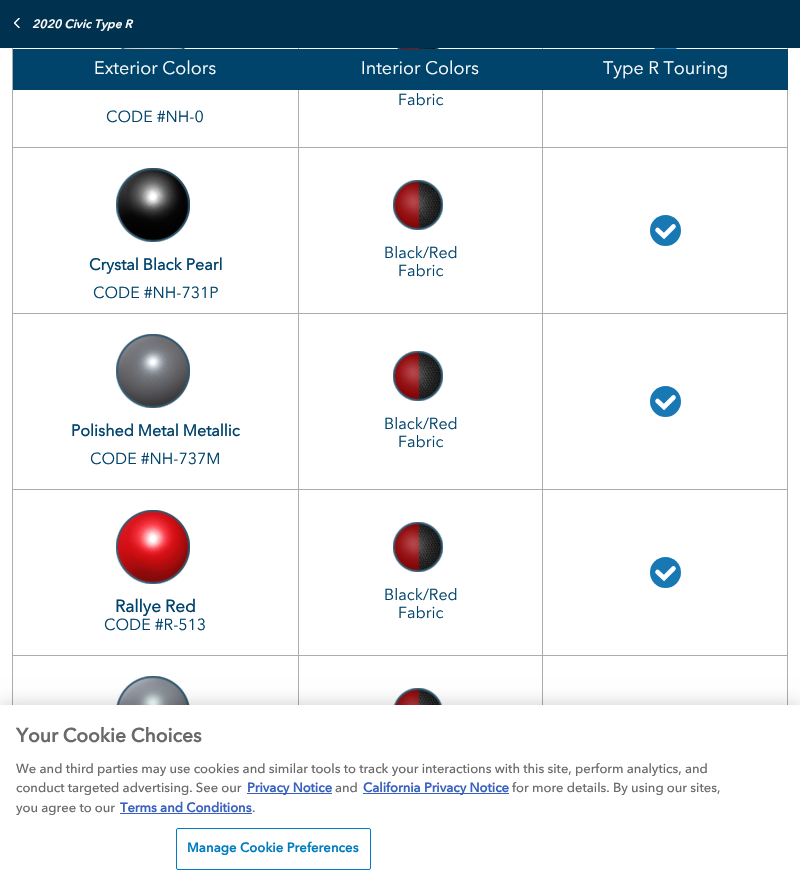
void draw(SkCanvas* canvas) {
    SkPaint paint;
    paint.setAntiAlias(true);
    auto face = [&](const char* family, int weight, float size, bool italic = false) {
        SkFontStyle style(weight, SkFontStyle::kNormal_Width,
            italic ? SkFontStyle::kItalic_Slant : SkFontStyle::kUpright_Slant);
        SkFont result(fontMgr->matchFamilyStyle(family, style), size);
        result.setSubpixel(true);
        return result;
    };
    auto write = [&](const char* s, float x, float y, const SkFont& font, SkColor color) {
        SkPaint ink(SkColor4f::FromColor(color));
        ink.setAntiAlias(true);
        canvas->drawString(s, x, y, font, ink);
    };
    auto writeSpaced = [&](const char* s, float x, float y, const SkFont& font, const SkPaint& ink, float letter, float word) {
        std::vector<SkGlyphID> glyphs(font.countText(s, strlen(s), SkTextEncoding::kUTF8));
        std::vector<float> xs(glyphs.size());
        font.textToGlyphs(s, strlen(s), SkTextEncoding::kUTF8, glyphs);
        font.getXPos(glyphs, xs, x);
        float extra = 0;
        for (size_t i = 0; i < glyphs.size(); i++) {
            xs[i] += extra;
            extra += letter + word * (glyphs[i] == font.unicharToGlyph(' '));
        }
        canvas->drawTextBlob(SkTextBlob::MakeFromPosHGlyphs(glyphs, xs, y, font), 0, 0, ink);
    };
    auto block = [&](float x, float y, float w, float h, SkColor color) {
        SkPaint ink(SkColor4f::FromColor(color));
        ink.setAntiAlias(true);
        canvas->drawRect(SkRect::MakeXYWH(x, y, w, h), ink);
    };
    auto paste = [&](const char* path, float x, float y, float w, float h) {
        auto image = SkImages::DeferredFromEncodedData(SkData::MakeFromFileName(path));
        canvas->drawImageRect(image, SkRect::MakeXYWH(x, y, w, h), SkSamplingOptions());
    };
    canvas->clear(SK_ColorWHITE);
    paint.setColor(SkColorSetRGB(24, 120, 179));
    canvas->drawCircle(665.5f, 59.5f, 15.5f, paint);
    block(0, 0, 800, 48, SkColorSetRGB(0, 50, 79));
    canvas->save();
    canvas->clipPath(SkPathBuilder().moveTo(20, 18).lineTo(20, 28).lineTo(14, 28).lineTo(14, 18).close().detach(), true);
    paint.setStyle(SkPaint::kStroke_Style);
    paint.setStrokeWidth(1.5f);
    paint.setStrokeCap(SkPaint::kRound_Cap);
    paint.setStrokeJoin(SkPaint::kRound_Join);
    paint.setColor(SK_ColorWHITE);
    canvas->drawPath(SkPathBuilder().moveTo(19, 27.5f).lineTo(14.5f, 23).lineTo(19, 18.5f).detach(), paint);
    canvas->restore();
    auto kFont1 = face("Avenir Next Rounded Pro", 600, 12, true);
    write("2020 Civic Type R", 32, 28, kFont1, SK_ColorWHITE);
    block(542, 147, 246, 1, SkColorSetRGB(172, 172, 172));
    block(542, 313, 246, 1, SkColorSetRGB(172, 172, 172));
    block(542, 489, 246, 1, SkColorSetRGB(172, 172, 172));
    block(542, 655, 246, 1, SkColorSetRGB(172, 172, 172));
    block(542, 655, 1, 50, SkColorSetRGB(172, 172, 172));
    block(298, 655, 245, 1, SkColorSetRGB(172, 172, 172));
    block(542, 489, 1, 167, SkColorSetRGB(172, 172, 172));
    block(298, 489, 245, 1, SkColorSetRGB(172, 172, 172));
    block(542, 313, 1, 177, SkColorSetRGB(172, 172, 172));
    block(298, 313, 245, 1, SkColorSetRGB(172, 172, 172));
    block(542, 147, 1, 167, SkColorSetRGB(172, 172, 172));
    block(298, 147, 245, 1, SkColorSetRGB(172, 172, 172));
    block(298, 655, 1, 50, SkColorSetRGB(172, 172, 172));
    block(12, 655, 287, 1, SkColorSetRGB(172, 172, 172));
    block(298, 489, 1, 167, SkColorSetRGB(172, 172, 172));
    block(12, 489, 287, 1, SkColorSetRGB(172, 172, 172));
    block(298, 313, 1, 177, SkColorSetRGB(172, 172, 172));
    block(12, 313, 287, 1, SkColorSetRGB(172, 172, 172));
    block(298, 147, 1, 167, SkColorSetRGB(172, 172, 172));
    block(12, 147, 287, 1, SkColorSetRGB(172, 172, 172));
    block(298, 48, 1, 100, SkColorSetRGB(172, 172, 172));
    block(542, 48, 1, 100, SkColorSetRGB(172, 172, 172));
    block(787, 655, 1, 50, SkColorSetRGB(172, 172, 172));
    block(787, 489, 1, 167, SkColorSetRGB(172, 172, 172));
    block(787, 313, 1, 177, SkColorSetRGB(172, 172, 172));
    block(787, 48, 1, 266, SkColorSetRGB(172, 172, 172));
    block(13, 49, 775, 41, SkColorSetRGB(0, 68, 107));
    auto kFont2 = face("Avenir Next", 400, 18);
    write("Exterior Colors", 94, 74, kFont2, SK_ColorWHITE);
    write("Interior Colors", 361, 74, kFont2, SK_ColorWHITE);
    write("Type R Touring", 603, 74, kFont2, SK_ColorWHITE);
    paste("pic1.png", 397, 48, 42, 1);
    auto kFont3 = face("Avenir Next", 400, 16);
    write("Fabric", 398, 105, kFont3, SkColorSetRGB(0, 67, 107));
    paste("pic2.png", 120, 48, 66, 1);
    write("CODE #NH-0", 106, 122, kFont3, SkColorSetRGB(0, 67, 107));
    block(12, 655, 1, 50, SkColorSetRGB(172, 172, 172));
    block(12, 489, 1, 167, SkColorSetRGB(172, 172, 172));
    block(12, 313, 1, 177, SkColorSetRGB(172, 172, 172));
    block(12, 48, 1, 266, SkColorSetRGB(172, 172, 172));
    paste("pic3.png", 116, 168, 74, 74);
    auto kFont4 = face("Avenir Next", 700, 16);
    write("Crystal Black Pearl", 89, 270, kFont4, SkColorSetRGB(0, 67, 107));
    write("CODE #NH-731P", 93, 298, kFont3, SkColorSetRGB(0, 67, 107));
    paste("pic4.png", 393, 180, 50, 50);
    write("Black/Red", 384, 258, kFont3, SkColorSetRGB(0, 67, 107));
    write("Fabric", 398, 276, kFont3, SkColorSetRGB(0, 67, 107));
    paint.setStyle(SkPaint::kFill_Style);
    paint.setColor(SkColorSetRGB(24, 120, 179));
    canvas->drawCircle(665.5f, 230.5f, 15.5f, paint);
    paint.setStyle(SkPaint::kStroke_Style);
    paint.setStrokeWidth(4.6f);
    paint.setStrokeJoin(SkPaint::kMiter_Join);
    paint.setColor(SK_ColorWHITE);
    canvas->drawPath(SkPathBuilder().moveTo(657.5f, 230).lineTo(664, 236).lineTo(673.5f, 226.5f).detach(), paint);
    paste("pic5.png", 116, 334, 74, 74);
    write("Polished Metal Metallic", 71, 436, kFont4, SkColorSetRGB(0, 67, 107));
    write("CODE #NH-737M", 90, 464, kFont3, SkColorSetRGB(0, 67, 107));
    paste("pic4.png", 393, 351, 50, 50);
    write("Black/Red", 384, 429, kFont3, SkColorSetRGB(0, 67, 107));
    write("Fabric", 398, 447, kFont3, SkColorSetRGB(0, 67, 107));
    paint.setStyle(SkPaint::kFill_Style);
    paint.setColor(SkColorSetRGB(24, 120, 179));
    canvas->drawCircle(665.5f, 401.5f, 15.5f, paint);
    paint.setStyle(SkPaint::kStroke_Style);
    paint.setColor(SK_ColorWHITE);
    canvas->drawPath(SkPathBuilder().moveTo(657.5f, 401).lineTo(664, 407).lineTo(673.5f, 397.5f).detach(), paint);
    paste("pic6.png", 116, 510, 74, 74);
    auto kFont5 = face("Avenir Next", 700, 17);
    write("Rallye Red", 115, 612, kFont5, SkColorSetRGB(0, 67, 107));
    write("CODE #R-513", 104, 630, kFont3, SkColorSetRGB(0, 67, 107));
    paste("pic4.png", 393, 522, 50, 50);
    write("Black/Red", 384, 600, kFont3, SkColorSetRGB(0, 67, 107));
    write("Fabric", 398, 618, kFont3, SkColorSetRGB(0, 67, 107));
    paint.setStyle(SkPaint::kFill_Style);
    paint.setColor(SkColorSetRGB(24, 120, 179));
    canvas->drawCircle(665.5f, 572.5f, 15.5f, paint);
    paint.setStyle(SkPaint::kStroke_Style);
    paint.setColor(SK_ColorWHITE);
    canvas->drawPath(SkPathBuilder().moveTo(657.5f, 572).lineTo(664, 578).lineTo(673.5f, 568.5f).detach(), paint);
    paste("pic7.png", 116, 676, 74, 29);
    paste("pic8.png", 393, 688, 50, 17);
    paint.setStyle(SkPaint::kFill_Style);
    paint.setColor(SkColorSetARGB(51, 0, 0, 0));
    paint.setMaskFilter(SkMaskFilter::MakeBlur(kNormal_SkBlurStyle, 9));
    canvas->drawRect(SkRect::MakeXYWH(0, 705, 800, 175), paint);
    paint.setMaskFilter(nullptr);
    block(0, 705, 800, 175, SK_ColorWHITE);
    auto kFont6 = face("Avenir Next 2", 700, 19.25f);
    write("Your Cookie Choices", 16, 742, kFont6, SkColorSetRGB(105, 105, 105));
    auto kFont7 = face("Avenir Next", 500, 13);
    write("We and third parties may use cookies and similar tools to track your interactions with this site, perform analytics, and", 16, 773, kFont7, SkColorSetRGB(105, 105, 105));
    write("conduct targeted advertising. See our", 16, 792, kFont7, SkColorSetRGB(105, 105, 105));
    block(247, 793, 85, 1, SkColorSetRGB(56, 96, 190));
    auto kFont8 = face("Avenir Next 2", 700, 13);
    write("Privacy Notice", 247, 792, kFont8, SkColorSetRGB(56, 96, 190));
    write("and", 335, 792, kFont7, SkColorSetRGB(105, 105, 105));
    block(363, 793, 146, 1, SkColorSetRGB(56, 96, 190));
    write("California Privacy Notice", 363, 792, kFont8, SkColorSetRGB(56, 96, 190));
    write("for more details. By using our sites,", 512, 792, kFont7, SkColorSetRGB(105, 105, 105));
    write("you agree to our", 16, 812, kFont7, SkColorSetRGB(105, 105, 105));
    write("Terms and Conditions", 120, 812, kFont8, SkColorSetRGB(56, 96, 190));
    block(120, 813, 132, 1, SkColorSetRGB(56, 96, 190));
    write(".", 252, 812, kFont7, SkColorSetRGB(105, 105, 105));
    paint.setStyle(SkPaint::kStroke_Style);
    paint.setStrokeWidth(1);
    paint.setStrokeCap(SkPaint::kButt_Cap);
    paint.setColor(SkColorSetRGB(0, 124, 192));
    canvas->drawRoundRect(SkRect::MakeXYWH(176.5f, 828.5f, 194, 41), 1.5f, 1.5f, paint);
    paint.setStyle(SkPaint::kFill_Style);
    writeSpaced("Manage Cookie Preferences", 187, 852, kFont8, paint, 0.1f, 0);
}
